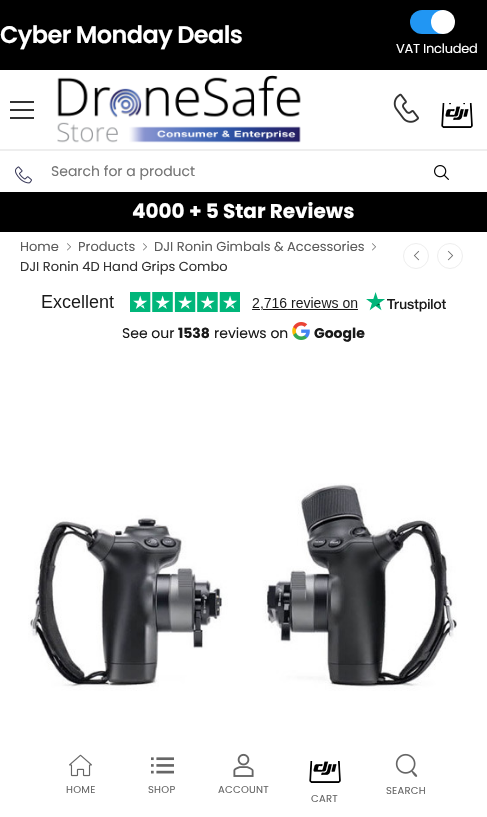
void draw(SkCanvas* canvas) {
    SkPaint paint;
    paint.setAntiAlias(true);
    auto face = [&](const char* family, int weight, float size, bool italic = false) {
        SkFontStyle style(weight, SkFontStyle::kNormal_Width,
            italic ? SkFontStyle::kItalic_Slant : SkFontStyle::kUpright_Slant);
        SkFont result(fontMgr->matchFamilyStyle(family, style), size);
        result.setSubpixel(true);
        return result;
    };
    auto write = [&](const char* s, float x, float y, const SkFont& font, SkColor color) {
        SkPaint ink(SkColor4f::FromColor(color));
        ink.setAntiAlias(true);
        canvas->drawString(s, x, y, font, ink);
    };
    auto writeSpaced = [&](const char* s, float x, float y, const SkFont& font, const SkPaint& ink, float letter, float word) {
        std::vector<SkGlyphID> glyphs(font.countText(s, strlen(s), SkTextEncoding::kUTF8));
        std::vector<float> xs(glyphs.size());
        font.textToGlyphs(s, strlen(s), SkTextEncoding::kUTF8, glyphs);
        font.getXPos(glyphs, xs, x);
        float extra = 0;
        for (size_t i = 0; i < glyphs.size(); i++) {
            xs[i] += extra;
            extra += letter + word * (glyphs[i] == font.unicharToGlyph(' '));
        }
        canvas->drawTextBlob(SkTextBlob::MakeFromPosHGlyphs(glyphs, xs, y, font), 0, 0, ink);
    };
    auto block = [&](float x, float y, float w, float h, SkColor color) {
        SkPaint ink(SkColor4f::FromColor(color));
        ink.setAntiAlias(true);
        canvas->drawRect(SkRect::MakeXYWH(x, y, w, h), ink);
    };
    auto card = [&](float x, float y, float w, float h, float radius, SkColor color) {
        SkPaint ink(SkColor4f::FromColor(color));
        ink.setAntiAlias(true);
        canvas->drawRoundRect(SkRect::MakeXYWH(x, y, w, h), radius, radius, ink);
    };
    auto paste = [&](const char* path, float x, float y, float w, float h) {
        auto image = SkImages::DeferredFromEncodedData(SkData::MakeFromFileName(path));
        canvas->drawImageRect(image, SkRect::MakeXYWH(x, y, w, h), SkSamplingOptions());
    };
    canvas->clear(SK_ColorWHITE);
    block(0, 149, 487, 2, SkColorSetRGB(238, 238, 238));
    block(0, 0, 487, 70, SK_ColorBLACK);
    auto kFont1 = face("Poppins", 600, 24);
    paint.setColor(SK_ColorWHITE);
    writeSpaced("Cyber Monday Deals", 0, 43, kFont1, paint, -0.6f, 0);
    card(410, 10, 42, 24, 12, SkColorSetRGB(33, 150, 243));
    canvas->drawCircle(443, 22, 12, paint);
    auto kFont2 = face("Poppins", 400, 13);
    writeSpaced("VAT Included", 396, 53, kFont2, paint, -0.25f, 0);
    paste("pic1.png", 10, 101, 24, 18);
    paste("pic2.png", 57, 75, 244, 68);
    paste("pic3.png", 393, 93, 26, 30);
    paste("pic4.png", 441, 103, 32, 25);
    paste("pic5.png", 15, 166, 17, 18);
    auto kFont3 = face("Poppins", 400, 14);
    write("Search for a product", 51, 176, kFont3, SkColorSetRGB(117, 117, 117));
    paste("pic6.png", 434, 165, 15, 15);
    block(0, 192, 487, 40, SK_ColorBLACK);
    auto kFont4 = face("Poppins", 700, 20);
    write("4000 + 5 Star Reviews", 132, 218, kFont4, SK_ColorWHITE);
    write("Home", 20, 251, kFont2, SkColorSetRGB(92, 92, 92));
    paste("pic7.png", 67, 243, 4, 8);
    write("Products", 78, 251, kFont2, SkColorSetRGB(92, 92, 92));
    paste("pic7.png", 143, 243, 4, 8);
    write("DJI Ronin Gimbals & Accessories", 154, 251, kFont2, SkColorSetRGB(92, 92, 92));
    paste("pic7.png", 372, 243, 4, 8);
    write("DJI Ronin 4D Hand Grips Combo", 20, 271, kFont2, SkColorSetRGB(51, 51, 51));
    paint.setStyle(SkPaint::kStroke_Style);
    paint.setStrokeWidth(1);
    paint.setColor(SkColorSetRGB(238, 238, 238));
    canvas->drawCircle(416, 256, 12.5f, paint);
    paste("pic8.png", 413, 250, 7, 11);
    canvas->drawCircle(450, 256, 12.5f, paint);
    paste("pic9.png", 447, 250, 7, 11);
    paste("pic10.png", 42, 292, 404, 20);
    write("See our", 122, 338, kFont3, SkColorSetRGB(25, 25, 25));
    auto kFont5 = face("Poppins", 700, 14);
    write("1538", 178, 338, kFont5, SkColorSetRGB(25, 25, 25));
    write("reviews on", 214, 338, kFont3, SkColorSetRGB(25, 25, 25));
    paste("pic11.png", 292, 322, 18, 18);
    write("Google", 314, 338, kFont5, SkColorSetRGB(25, 25, 25));
    paste("pic12.png", 28, 483, 429, 208);
    paste("pic13.png", 69, 754, 23, 23);
    auto kFont6 = face("Poppins", 400, 10);
    paint.setStyle(SkPaint::kFill_Style);
    paint.setColor(SkColorSetRGB(102, 102, 102));
    writeSpaced("HOME", 66, 793, kFont6, paint, 0.25f, 0);
    paste("pic14.png", 151, 757, 23, 17);
    writeSpaced("SHOP", 148, 793, kFont6, paint, 0.25f, 0);
    paste("pic15.png", 233, 753, 21, 24);
    writeSpaced("ACCOUNT", 218, 793, kFont6, paint, 0.25f, 0);
    paste("pic16.png", 395, 753, 23, 24);
    writeSpaced("SEARCH", 386, 794, kFont6, paint, 0.25f, 0);
    paste("pic17.png", 309, 761, 32, 22);
    writeSpaced("CART", 311, 802, kFont6, paint, 0.25f, 0);
}
